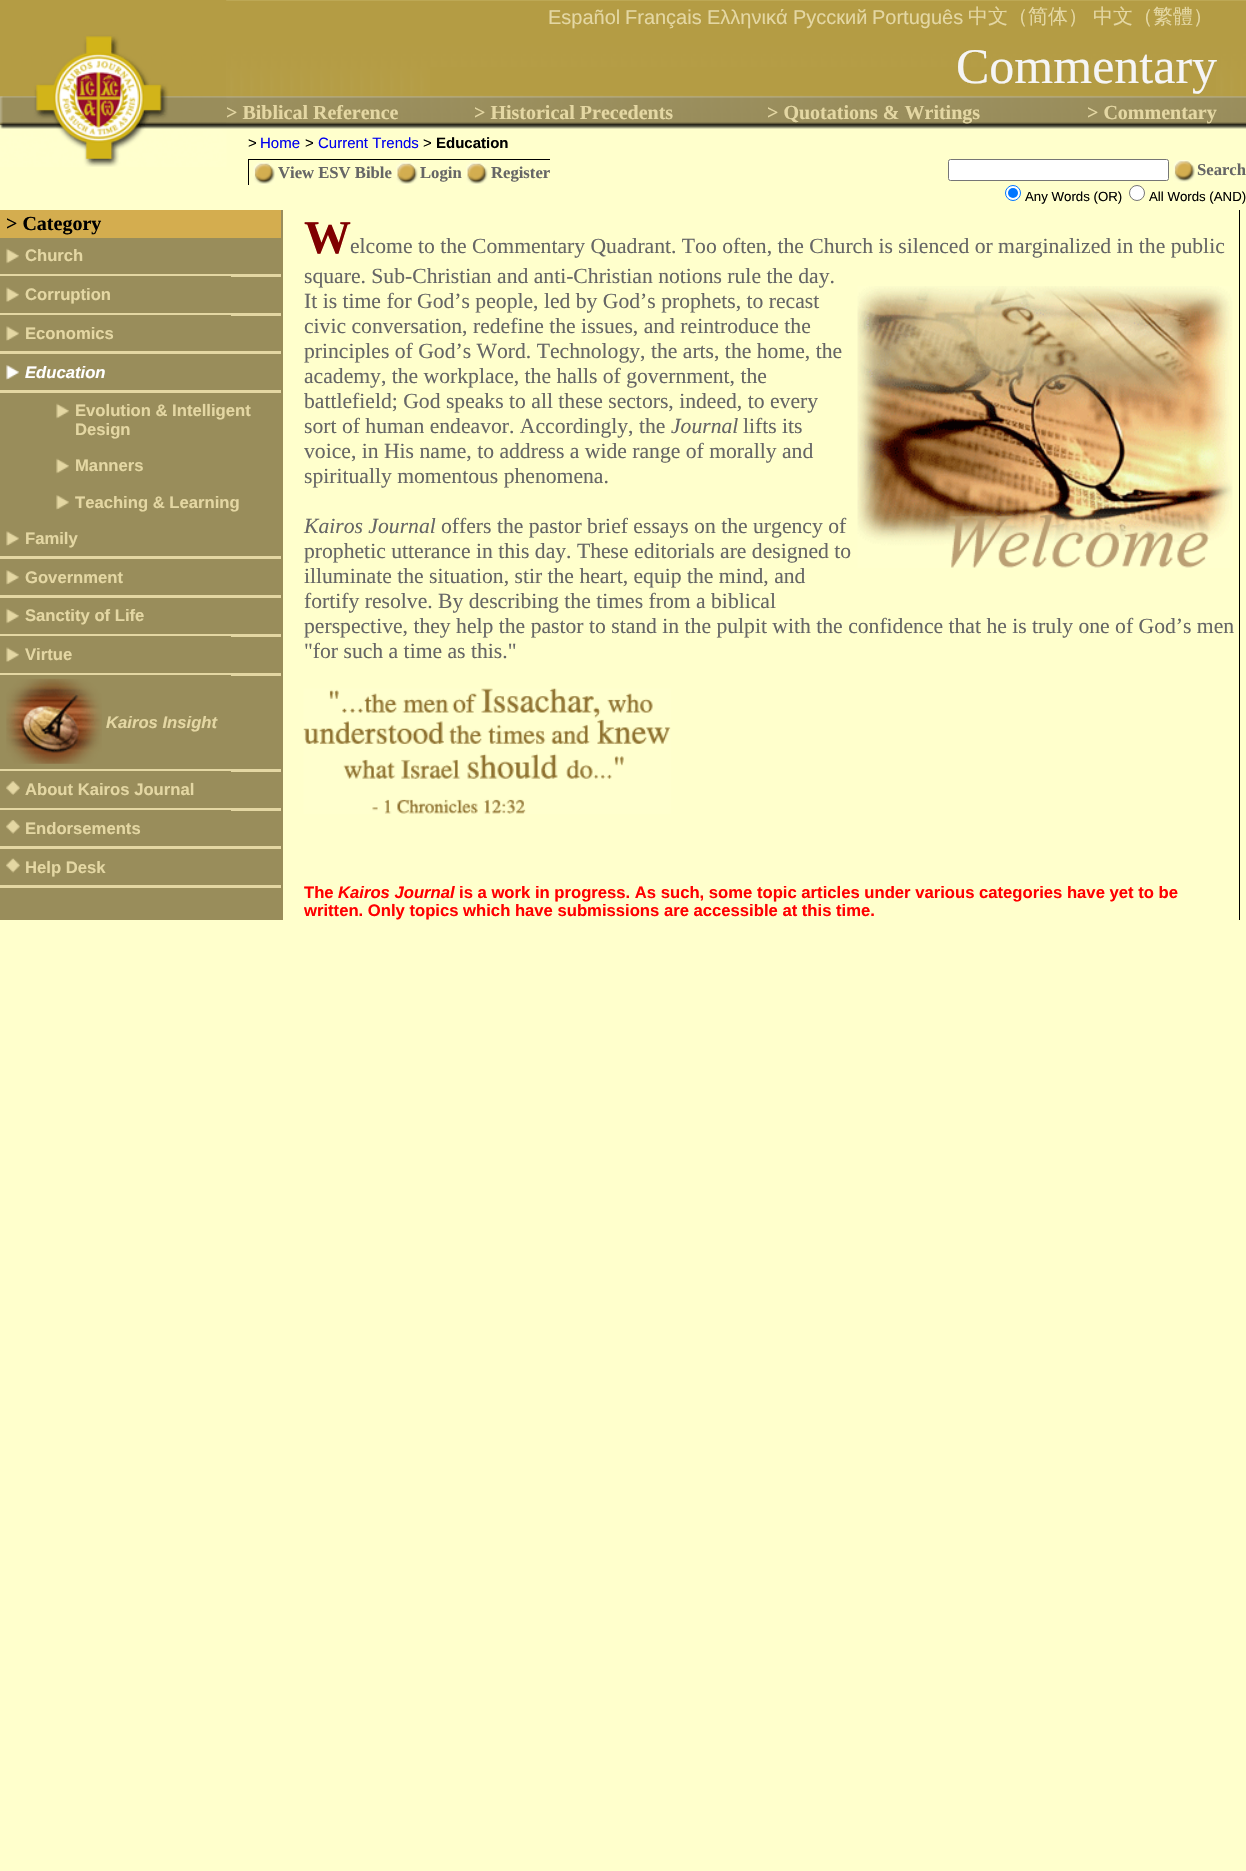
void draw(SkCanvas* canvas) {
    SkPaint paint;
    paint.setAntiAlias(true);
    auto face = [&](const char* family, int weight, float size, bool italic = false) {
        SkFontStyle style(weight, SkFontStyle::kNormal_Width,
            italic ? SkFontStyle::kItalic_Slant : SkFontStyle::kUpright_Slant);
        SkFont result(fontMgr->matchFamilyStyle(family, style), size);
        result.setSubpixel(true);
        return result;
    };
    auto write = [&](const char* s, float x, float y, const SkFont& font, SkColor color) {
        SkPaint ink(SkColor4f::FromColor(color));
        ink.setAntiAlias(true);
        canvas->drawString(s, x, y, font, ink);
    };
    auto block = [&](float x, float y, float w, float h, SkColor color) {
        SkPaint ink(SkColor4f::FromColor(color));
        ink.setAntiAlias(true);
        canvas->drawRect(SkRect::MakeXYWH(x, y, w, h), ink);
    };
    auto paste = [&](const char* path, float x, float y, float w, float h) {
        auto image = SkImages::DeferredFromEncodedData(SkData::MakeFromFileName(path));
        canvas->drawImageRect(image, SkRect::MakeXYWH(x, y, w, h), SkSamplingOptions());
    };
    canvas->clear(SkColorSetRGB(255, 255, 204));
    paste("pic1.png", 226, 0, 1020, 130);
    paste("pic2.png", 0, 0, 227, 167);
    auto kFont1 = face("Liberation Sans", 400, 20);
    write("Español", 548, 24, kFont1, SkColorSetRGB(228, 215, 163));
    write("Français", 625, 24, kFont1, SkColorSetRGB(228, 215, 163));
    write("Ελληνικά", 707, 24, kFont1, SkColorSetRGB(228, 215, 163));
    write("Русский", 793, 24, kFont1, SkColorSetRGB(228, 215, 163));
    write("Português", 872, 24, kFont1, SkColorSetRGB(228, 215, 163));
    auto kFont2 = face("WenQuanYi Zen Hei", 500, 20);
    write("中文（简体）", 968, 23, kFont2, SkColorSetRGB(228, 215, 163));
    write("中文（繁體）", 1093, 23, kFont2, SkColorSetRGB(228, 215, 163));
    block(430, 67, 786, 28, SkColorSetRGB(180, 156, 68));
    auto kFont3 = face("Liberation Serif", 400, 50);
    write("Commentary", 956, 83, kFont3, SkColorSetRGB(245, 245, 245));
    auto kFont4 = face("Liberation Serif", 700, 20);
    write("> Biblical Reference", 226, 119, kFont4, SkColorSetRGB(228, 215, 163));
    write("> Historical Precedents", 474, 119, kFont4, SkColorSetRGB(228, 215, 163));
    write("> Quotations & Writings", 767, 119, kFont4, SkColorSetRGB(228, 215, 163));
    write("> Commentary", 1087, 119, kFont4, SkColorSetRGB(228, 215, 163));
    auto kFont5 = face("Liberation Sans", 400, 15);
    write(">", 248, 148, kFont5, SK_ColorBLACK);
    write("Home", 260, 148, kFont5, SkColorSetRGB(0, 0, 238));
    write(">", 305, 148, kFont5, SK_ColorBLACK);
    write("Current Trends", 318, 148, kFont5, SkColorSetRGB(0, 0, 238));
    write(">", 423, 148, kFont5, SK_ColorBLACK);
    auto kFont6 = face("Liberation Sans", 700, 15);
    write("Education", 436, 148, kFont6, SK_ColorBLACK);
    block(248, 159, 302, 1, SK_ColorBLACK);
    block(248, 159, 1, 26, SK_ColorBLACK);
    paste("pic3.png", 253, 162, 22, 23);
    auto kFont7 = face("Liberation Serif", 700, 16.65f);
    write("View ESV Bible", 278, 178, kFont7, SkColorSetRGB(102, 102, 102));
    paste("pic4.png", 396, 162, 22, 23);
    write("Login", 420, 178, kFont7, SkColorSetRGB(102, 102, 102));
    paste("pic5.png", 466, 162, 22, 23);
    write("Register", 491, 178, kFont7, SkColorSetRGB(102, 102, 102));
    paint.setColor(SK_ColorWHITE);
    canvas->drawRoundRect(SkRect::MakeXYWH(948.5f, 159.5f, 220, 21), 2, 2, paint);
    paint.setStyle(SkPaint::kStroke_Style);
    paint.setStrokeWidth(1);
    paint.setColor(SkColorSetRGB(118, 118, 118));
    canvas->drawRoundRect(SkRect::MakeXYWH(948.5f, 159.5f, 220, 21), 2, 2, paint);
    paste("pic6.png", 1173, 160, 22, 23);
    write("Search", 1197, 175, kFont7, SkColorSetRGB(102, 102, 102));
    paint.setStyle(SkPaint::kFill_Style);
    paint.setColor(SK_ColorWHITE);
    canvas->drawCircle(1013, 193, 7.5f, paint);
    paint.setStyle(SkPaint::kStroke_Style);
    paint.setColor(SkColorSetRGB(0, 117, 255));
    canvas->drawCircle(1013, 193, 7.5f, paint);
    paint.setStyle(SkPaint::kFill_Style);
    canvas->drawCircle(1013, 193, 5, paint);
    auto kFont8 = face("Liberation Sans", 400, 13.25f);
    write("Any Words (OR)", 1025, 201, kFont8, SK_ColorBLACK);
    paint.setColor(SK_ColorWHITE);
    canvas->drawCircle(1137, 193, 7.5f, paint);
    paint.setStyle(SkPaint::kStroke_Style);
    paint.setColor(SkColorSetRGB(118, 118, 118));
    canvas->drawCircle(1137, 193, 7.5f, paint);
    write("All Words (AND)", 1149, 201, kFont8, SK_ColorBLACK);
    block(0, 210, 283, 710, SkColorSetRGB(153, 141, 91));
    block(0, 210, 281, 28, SkColorSetRGB(212, 173, 79));
    write("> Category", 6, 230, kFont4, SK_ColorBLACK);
    block(0, 274, 281, 3, SkColorSetRGB(228, 215, 163));
    paste("pic7.png", 6, 248, 13, 16);
    auto kFont9 = face("Liberation Sans", 700, 16.65f);
    write("Church", 25, 261, kFont9, SkColorSetRGB(228, 215, 163));
    block(0, 313, 281, 3, SkColorSetRGB(228, 215, 163));
    block(0, 276, 231, 1, SkColorSetRGB(153, 141, 91));
    paste("pic8.png", 6, 287, 13, 15);
    write("Corruption", 25, 300, kFont9, SkColorSetRGB(228, 215, 163));
    block(0, 351, 281, 3, SkColorSetRGB(228, 215, 163));
    block(0, 315, 231, 1, SkColorSetRGB(153, 141, 91));
    paste("pic9.png", 6, 326, 13, 15);
    write("Economics", 25, 339, kFont9, SkColorSetRGB(228, 215, 163));
    block(0, 390, 281, 3, SkColorSetRGB(228, 215, 163));
    paste("pic10.png", 6, 365, 13, 15);
    auto kFont10 = face("Liberation Sans", 700, 16.65f, true);
    write("Education", 25, 378, kFont10, SK_ColorWHITE);
    paste("pic7.png", 56, 403, 13, 16);
    write("Evolution & Intelligent", 75, 416, kFont9, SkColorSetRGB(228, 215, 163));
    write("Design", 75, 435, kFont9, SkColorSetRGB(228, 215, 163));
    paste("pic7.png", 56, 458, 13, 16);
    write("Manners", 75, 471, kFont9, SkColorSetRGB(228, 215, 163));
    paste("pic11.png", 56, 495, 13, 15);
    write("Teaching & Learning", 75, 508, kFont9, SkColorSetRGB(228, 215, 163));
    block(0, 556, 281, 3, SkColorSetRGB(228, 215, 163));
    paste("pic9.png", 6, 531, 13, 15);
    write("Family", 25, 544, kFont9, SkColorSetRGB(228, 215, 163));
    block(0, 595, 281, 3, SkColorSetRGB(228, 215, 163));
    paste("pic11.png", 6, 570, 13, 15);
    write("Government", 25, 583, kFont9, SkColorSetRGB(228, 215, 163));
    block(0, 634, 281, 3, SkColorSetRGB(228, 215, 163));
    paste("pic7.png", 6, 608, 13, 16);
    write("Sanctity of Life", 25, 621, kFont9, SkColorSetRGB(228, 215, 163));
    block(0, 673, 281, 3, SkColorSetRGB(228, 215, 163));
    block(0, 636, 231, 1, SkColorSetRGB(153, 141, 91));
    paste("pic12.png", 6, 647, 13, 15);
    write("Virtue", 25, 660, kFont9, SkColorSetRGB(228, 215, 163));
    block(0, 769, 281, 3, SkColorSetRGB(228, 215, 163));
    block(0, 675, 231, 1, SkColorSetRGB(153, 141, 91));
    paste("pic13.png", 6, 678, 96, 86);
    write("Kairos Insight", 106, 728, kFont10, SkColorSetRGB(228, 215, 163));
    block(0, 808, 281, 3, SkColorSetRGB(228, 215, 163));
    block(0, 771, 231, 1, SkColorSetRGB(153, 141, 91));
    paste("pic14.png", 6, 781, 14, 14);
    write("About Kairos Journal", 25, 795, kFont9, SkColorSetRGB(228, 215, 163));
    block(0, 846, 281, 3, SkColorSetRGB(228, 215, 163));
    block(0, 810, 231, 1, SkColorSetRGB(153, 141, 91));
    paste("pic15.png", 6, 820, 14, 14);
    write("Endorsements", 25, 834, kFont9, SkColorSetRGB(228, 215, 163));
    block(0, 885, 281, 3, SkColorSetRGB(228, 215, 163));
    paste("pic16.png", 6, 858, 14, 15);
    write("Help Desk", 25, 873, kFont9, SkColorSetRGB(228, 215, 163));
    auto kFont11 = face("Liberation Serif", 700, 47);
    write("W", 304, 253, kFont11, SkColorSetRGB(128, 0, 0));
    auto kFont12 = face("Liberation Serif", 400, 21.65f);
    write("elcome to the Commentary Quadrant. Too often, the Church is silenced or marginalized in the public", 350, 253, kFont12, SkColorSetRGB(102, 102, 102));
    write("square. Sub-Christian and anti-Christian notions rule the day.", 304, 283, kFont12, SkColorSetRGB(102, 102, 102));
    write("It is time for God’s people, led by God’s prophets, to recast", 304, 308, kFont12, SkColorSetRGB(102, 102, 102));
    paste("pic17.png", 857, 286, 376, 282);
    write("civic conversation, redefine the issues, and reintroduce the", 304, 333, kFont12, SkColorSetRGB(102, 102, 102));
    write("principles of God’s Word. Technology, the arts, the home, the", 304, 358, kFont12, SkColorSetRGB(102, 102, 102));
    write("academy, the workplace, the halls of government, the", 304, 383, kFont12, SkColorSetRGB(102, 102, 102));
    write("battlefield; God speaks to all these sectors, indeed, to every", 304, 408, kFont12, SkColorSetRGB(102, 102, 102));
    write("sort of human endeavor. Accordingly, the", 304, 433, kFont12, SkColorSetRGB(102, 102, 102));
    auto kFont13 = face("Liberation Serif", 400, 21.65f, true);
    write("Journal", 671, 433, kFont13, SkColorSetRGB(102, 102, 102));
    write("lifts its", 743, 433, kFont12, SkColorSetRGB(102, 102, 102));
    write("voice, in His name, to address a wide range of morally and", 304, 458, kFont12, SkColorSetRGB(102, 102, 102));
    write("spiritually momentous phenomena.", 304, 483, kFont12, SkColorSetRGB(102, 102, 102));
    write("Kairos Journal", 304, 533, kFont13, SkColorSetRGB(102, 102, 102));
    write("offers the pastor brief essays on the urgency of", 441, 533, kFont12, SkColorSetRGB(102, 102, 102));
    write("prophetic utterance in this day. These editorials are designed to", 304, 558, kFont12, SkColorSetRGB(102, 102, 102));
    write("illuminate the situation, stir the heart, equip the mind, and", 304, 583, kFont12, SkColorSetRGB(102, 102, 102));
    write("fortify resolve. By describing the times from a biblical", 304, 608, kFont12, SkColorSetRGB(102, 102, 102));
    write("perspective, they help the pastor to stand in the pulpit with the confidence that he is truly one of God’s men", 304, 633, kFont12, SkColorSetRGB(102, 102, 102));
    write("\"for such a time as this.\"", 304, 658, kFont12, SkColorSetRGB(102, 102, 102));
    paste("pic18.png", 303, 688, 368, 126);
    write("The", 304, 898, kFont9, SkColorSetRGB(255, 0, 0));
    write("Kairos Journal", 338, 898, kFont10, SkColorSetRGB(255, 0, 0));
    write("is a work in progress. As such, some topic articles under various categories have yet to be", 459, 898, kFont9, SkColorSetRGB(255, 0, 0));
    write("written. Only topics which have submissions are accessible at this time.", 304, 916, kFont9, SkColorSetRGB(255, 0, 0));
    block(1239, 210, 1, 710, SK_ColorBLACK);
}
